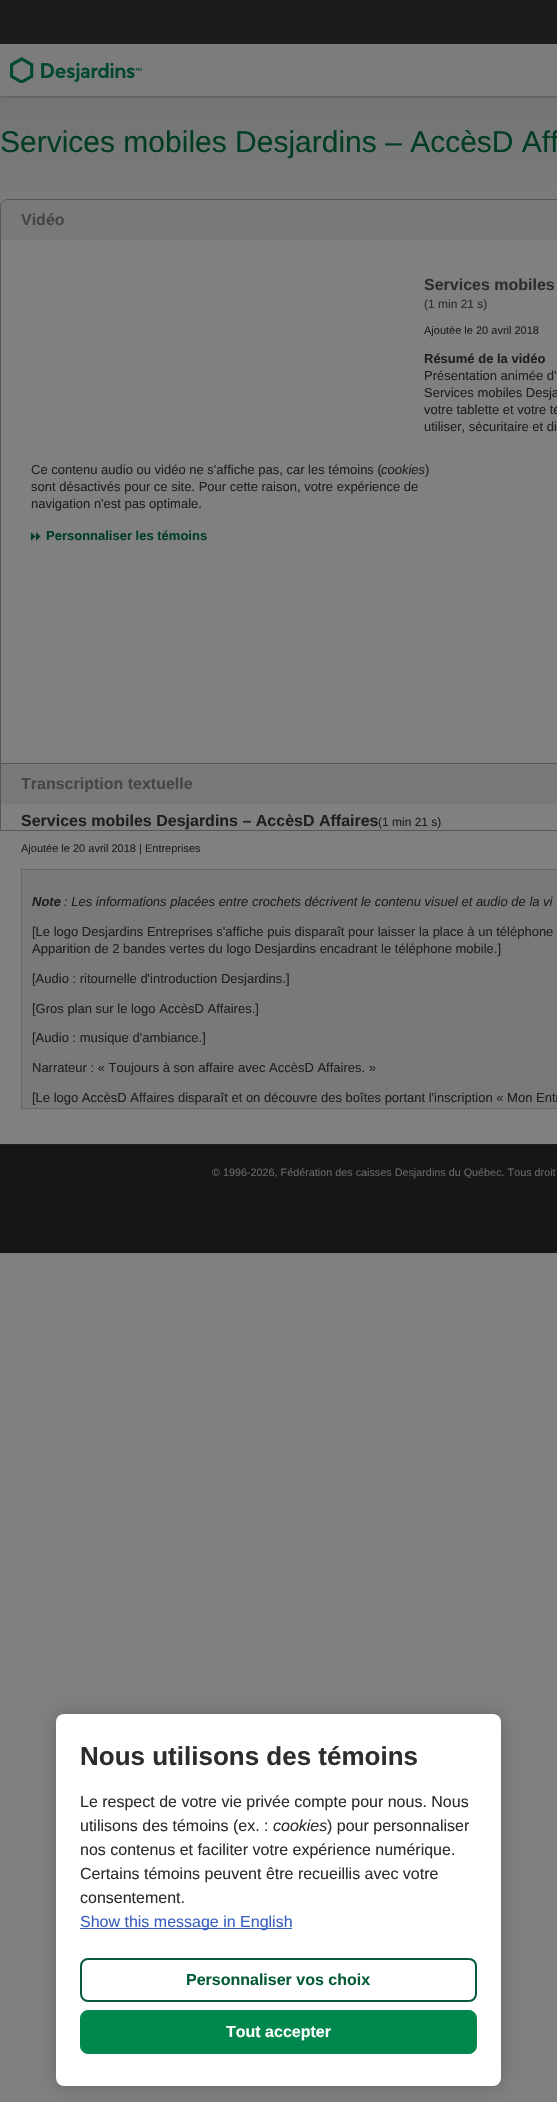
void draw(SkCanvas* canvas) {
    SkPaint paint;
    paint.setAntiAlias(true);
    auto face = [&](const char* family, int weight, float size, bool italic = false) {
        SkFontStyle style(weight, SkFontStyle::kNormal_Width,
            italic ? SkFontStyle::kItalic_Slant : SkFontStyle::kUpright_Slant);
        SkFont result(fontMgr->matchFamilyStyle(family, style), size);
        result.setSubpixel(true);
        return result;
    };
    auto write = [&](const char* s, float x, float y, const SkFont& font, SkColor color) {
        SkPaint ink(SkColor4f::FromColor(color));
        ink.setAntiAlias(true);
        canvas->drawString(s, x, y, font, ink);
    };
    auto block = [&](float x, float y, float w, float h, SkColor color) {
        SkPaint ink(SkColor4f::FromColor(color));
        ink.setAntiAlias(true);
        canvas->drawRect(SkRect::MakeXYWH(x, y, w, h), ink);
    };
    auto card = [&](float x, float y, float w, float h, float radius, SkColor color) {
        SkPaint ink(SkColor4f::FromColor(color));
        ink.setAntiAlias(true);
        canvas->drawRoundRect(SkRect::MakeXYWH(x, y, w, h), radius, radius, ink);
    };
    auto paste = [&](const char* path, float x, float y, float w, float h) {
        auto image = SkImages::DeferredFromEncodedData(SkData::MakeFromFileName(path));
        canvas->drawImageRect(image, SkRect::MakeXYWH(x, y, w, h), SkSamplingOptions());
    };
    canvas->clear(SkColorSetRGB(128, 128, 128));
    {
        const SkColor colors[] = {SkColorSetRGB(115, 116, 116), SkColorSetRGB(128, 128, 128)};
        const float stops[] = {0, 0.17f};
        const SkPoint ends[] = {{410, 96}, {410, 1144}};
        paint.setShader(SkGradientShader::MakeLinear(ends, colors, stops, 2, SkTileMode::kClamp));
        paint.setAlpha(255);
    }
    canvas->drawRect(SkRect::MakeXYWH(0, 96, 557, 144), paint);
    paint.setShader(nullptr);
    paint.setColor(SkColorSetARGB(54, 0, 0, 0));
    paint.setMaskFilter(SkMaskFilter::MakeBlur(kNormal_SkBlurStyle, 1));
    canvas->drawRect(SkRect::MakeXYWH(1, 1, 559, 96), paint);
    paint.setMaskFilter(nullptr);
    block(0, 44, 557, 52, SkColorSetRGB(124, 124, 124));
    block(0, 0, 557, 44, SkColorSetRGB(28, 28, 28));
    paste("pic1.png", 10, 57, 132, 26);
    auto kFont1 = face("Liberation Sans", 400, 30);
    write("Services mobiles Desjardins – AccèsD Aff", 0, 152, kFont1, SkColorSetRGB(0, 61, 34));
    paint.setStyle(SkPaint::kStroke_Style);
    paint.setStrokeWidth(1);
    paint.setColor(SkColorSetRGB(86, 86, 86));
    canvas->drawPath(SkPathBuilder().moveTo(8, 199.5f).lineTo(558, 199.5f).cubicTo(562, 199.5f, 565.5f, 203, 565.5f, 207).lineTo(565.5f, 830.5f).lineTo(0.5f, 830.5f).lineTo(0.5f, 207).cubicTo(0.5f, 203, 4, 199.5f, 8, 199.5f).close().detach(), paint);
    paint.setStyle(SkPaint::kFill_Style);
    paint.setColor(SkColorSetRGB(121, 121, 121));
    canvas->drawPath(SkPathBuilder().moveTo(9, 200).lineTo(557, 200).cubicTo(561.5f, 200, 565, 203.5f, 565, 208).lineTo(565, 240).lineTo(1, 240).lineTo(1, 208).cubicTo(1, 203.5f, 4.5f, 200, 9, 200).close().detach(), paint);
    auto kFont2 = face("Liberation Sans", 700, 16);
    write("Vidéo", 21, 225, kFont2, SkColorSetRGB(69, 69, 69));
    write("Services mobiles", 424, 290, kFont2, SkColorSetRGB(45, 45, 45));
    auto kFont3 = face("Liberation Sans", 400, 12);
    write("(1 min 21 s)", 424, 308, kFont3, SkColorSetRGB(45, 45, 45));
    auto kFont4 = face("Liberation Sans", 400, 11);
    write("Ajoutée le 20 avril 2018", 424, 334, kFont4, SkColorSetRGB(31, 31, 31));
    auto kFont5 = face("Liberation Sans", 700, 13);
    write("Résumé de la vidéo", 424, 363, kFont5, SkColorSetRGB(31, 31, 31));
    auto kFont6 = face("Liberation Sans", 400, 13);
    write("Présentation animée d'", 424, 380, kFont6, SkColorSetRGB(31, 31, 31));
    write("Services mobiles Desja", 424, 397, kFont6, SkColorSetRGB(31, 31, 31));
    write("votre tablette et votre té", 424, 414, kFont6, SkColorSetRGB(31, 31, 31));
    write("utiliser, sécuritaire et di", 424, 431, kFont6, SkColorSetRGB(31, 31, 31));
    write("Ce contenu audio ou vidéo ne s'affiche pas, car les témoins (", 31, 474, kFont6, SkColorSetRGB(31, 31, 31));
    auto kFont7 = face("Liberation Sans", 400, 13, true);
    write("cookies", 381, 474, kFont7, SkColorSetRGB(31, 31, 31));
    write(")", 425, 474, kFont6, SkColorSetRGB(31, 31, 31));
    write("sont désactivés pour ce site. Pour cette raison, votre expérience de", 31, 491, kFont6, SkColorSetRGB(31, 31, 31));
    write("navigation n'est pas optimale.", 31, 508, kFont6, SkColorSetRGB(31, 31, 31));
    paste("pic2.png", 31, 532, 10, 9);
    write("Personnaliser les témoins", 46, 540, kFont5, SkColorSetRGB(0, 61, 34));
    block(1, 764, 556, 40, SkColorSetRGB(121, 121, 121));
    block(1, 763, 556, 1, SkColorSetRGB(86, 86, 86));
    write("Transcription textuelle", 21, 789, kFont2, SkColorSetRGB(69, 69, 69));
    write("Services mobiles Desjardins – AccèsD Affaires", 21, 826, kFont2, SkColorSetRGB(31, 31, 31));
    write("(1 min 21 s)", 378, 826, kFont3, SkColorSetRGB(31, 31, 31));
    write("Ajoutée le 20 avril 2018 | Entreprises", 21, 852, kFont4, SkColorSetRGB(31, 31, 31));
    canvas->drawRect(SkRect::MakeXYWH(21.5f, 869.5f, 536, 239), paint);
    paint.setStyle(SkPaint::kStroke_Style);
    paint.setColor(SkColorSetRGB(102, 102, 102));
    canvas->drawRect(SkRect::MakeXYWH(21.5f, 869.5f, 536, 239), paint);
    auto kFont8 = face("Liberation Sans", 700, 13, true);
    write("Note", 32, 906, kFont8, SkColorSetRGB(31, 31, 31));
    write(": Les informations placées entre crochets décrivent le contenu visuel et audio de la vi", 64, 906, kFont7, SkColorSetRGB(31, 31, 31));
    write("[Le logo Desjardins Entreprises s'affiche puis disparaît pour laisser la place à un téléphone", 32, 936, kFont6, SkColorSetRGB(31, 31, 31));
    write("Apparition de 2 bandes vertes du logo Desjardins encadrant le téléphone mobile.]", 32, 953, kFont6, SkColorSetRGB(31, 31, 31));
    write("[Audio : ritournelle d'introduction Desjardins.]", 32, 983, kFont6, SkColorSetRGB(31, 31, 31));
    write("[Gros plan sur le logo AccèsD Affaires.]", 32, 1013, kFont6, SkColorSetRGB(31, 31, 31));
    write("[Audio : musique d'ambiance.]", 32, 1042, kFont6, SkColorSetRGB(31, 31, 31));
    write("Narrateur : « Toujours à son affaire avec AccèsD Affaires. »", 32, 1072, kFont6, SkColorSetRGB(31, 31, 31));
    write("[Le logo AccèsD Affaires disparaît et on découvre des boîtes portant l'inscription « Mon Entr", 32, 1102, kFont6, SkColorSetRGB(31, 31, 31));
    block(0, 1145, 557, 108, SkColorSetRGB(21, 22, 24));
    block(0, 1144, 557, 1, SkColorSetRGB(31, 31, 31));
    auto kFont9 = face("Liberation Sans", 400, 10.8f);
    write("© 1996-2026, Fédération des caisses Desjardins du Québec. Tous droit", 212, 1176, kFont9, SkColorSetRGB(102, 102, 102));
    paint.setStyle(SkPaint::kFill_Style);
    paint.setColor(SkColorSetARGB(51, 0, 0, 0));
    paint.setMaskFilter(SkMaskFilter::MakeBlur(kNormal_SkBlurStyle, 9));
    canvas->drawRoundRect(SkRect::MakeXYWH(56, 1714, 445, 372), 8, 8, paint);
    paint.setMaskFilter(nullptr);
    card(56, 1714, 445, 372, 8, SK_ColorWHITE);
    auto kFont10 = face("Liberation Sans", 700, 26);
    write("Nous utilisons des témoins", 80, 1765, kFont10, SkColorSetRGB(45, 45, 45));
    auto kFont11 = face("Liberation Sans", 400, 16);
    write("Le respect de votre vie privée compte pour nous. Nous", 80, 1807, kFont11, SkColorSetRGB(45, 45, 45));
    write("utilisons des témoins (ex. :", 80, 1831, kFont11, SkColorSetRGB(45, 45, 45));
    auto kFont12 = face("Liberation Sans", 400, 16, true);
    write("cookies", 273, 1831, kFont12, SkColorSetRGB(45, 45, 45));
    write(") pour personnaliser", 327, 1831, kFont11, SkColorSetRGB(45, 45, 45));
    write("nos contenus et faciliter votre expérience numérique.", 80, 1855, kFont11, SkColorSetRGB(45, 45, 45));
    write("Certains témoins peuvent être recueillis avec votre", 80, 1879, kFont11, SkColorSetRGB(45, 45, 45));
    write("consentement.", 80, 1903, kFont11, SkColorSetRGB(45, 45, 45));
    block(80, 1928, 212, 1, SkColorSetRGB(56, 96, 190));
    write("Show this message in English", 80, 1927, kFont11, SkColorSetRGB(56, 96, 190));
    paint.setStyle(SkPaint::kStroke_Style);
    paint.setStrokeWidth(2);
    paint.setColor(SkColorSetRGB(5, 91, 55));
    canvas->drawRoundRect(SkRect::MakeXYWH(81, 1959, 395, 42), 7, 7, paint);
    write("Personnaliser vos choix", 186, 1985, kFont2, SkColorSetRGB(5, 91, 55));
    paint.setStyle(SkPaint::kFill_Style);
    paint.setColor(SkColorSetRGB(0, 135, 78));
    canvas->drawRoundRect(SkRect::MakeXYWH(80.5f, 2010.5f, 396, 43), 7.5f, 7.5f, paint);
    paint.setStyle(SkPaint::kStroke_Style);
    paint.setStrokeWidth(1);
    canvas->drawRoundRect(SkRect::MakeXYWH(80.5f, 2010.5f, 396, 43), 7.5f, 7.5f, paint);
    write("Tout accepter", 226, 2037, kFont2, SK_ColorWHITE);
}
